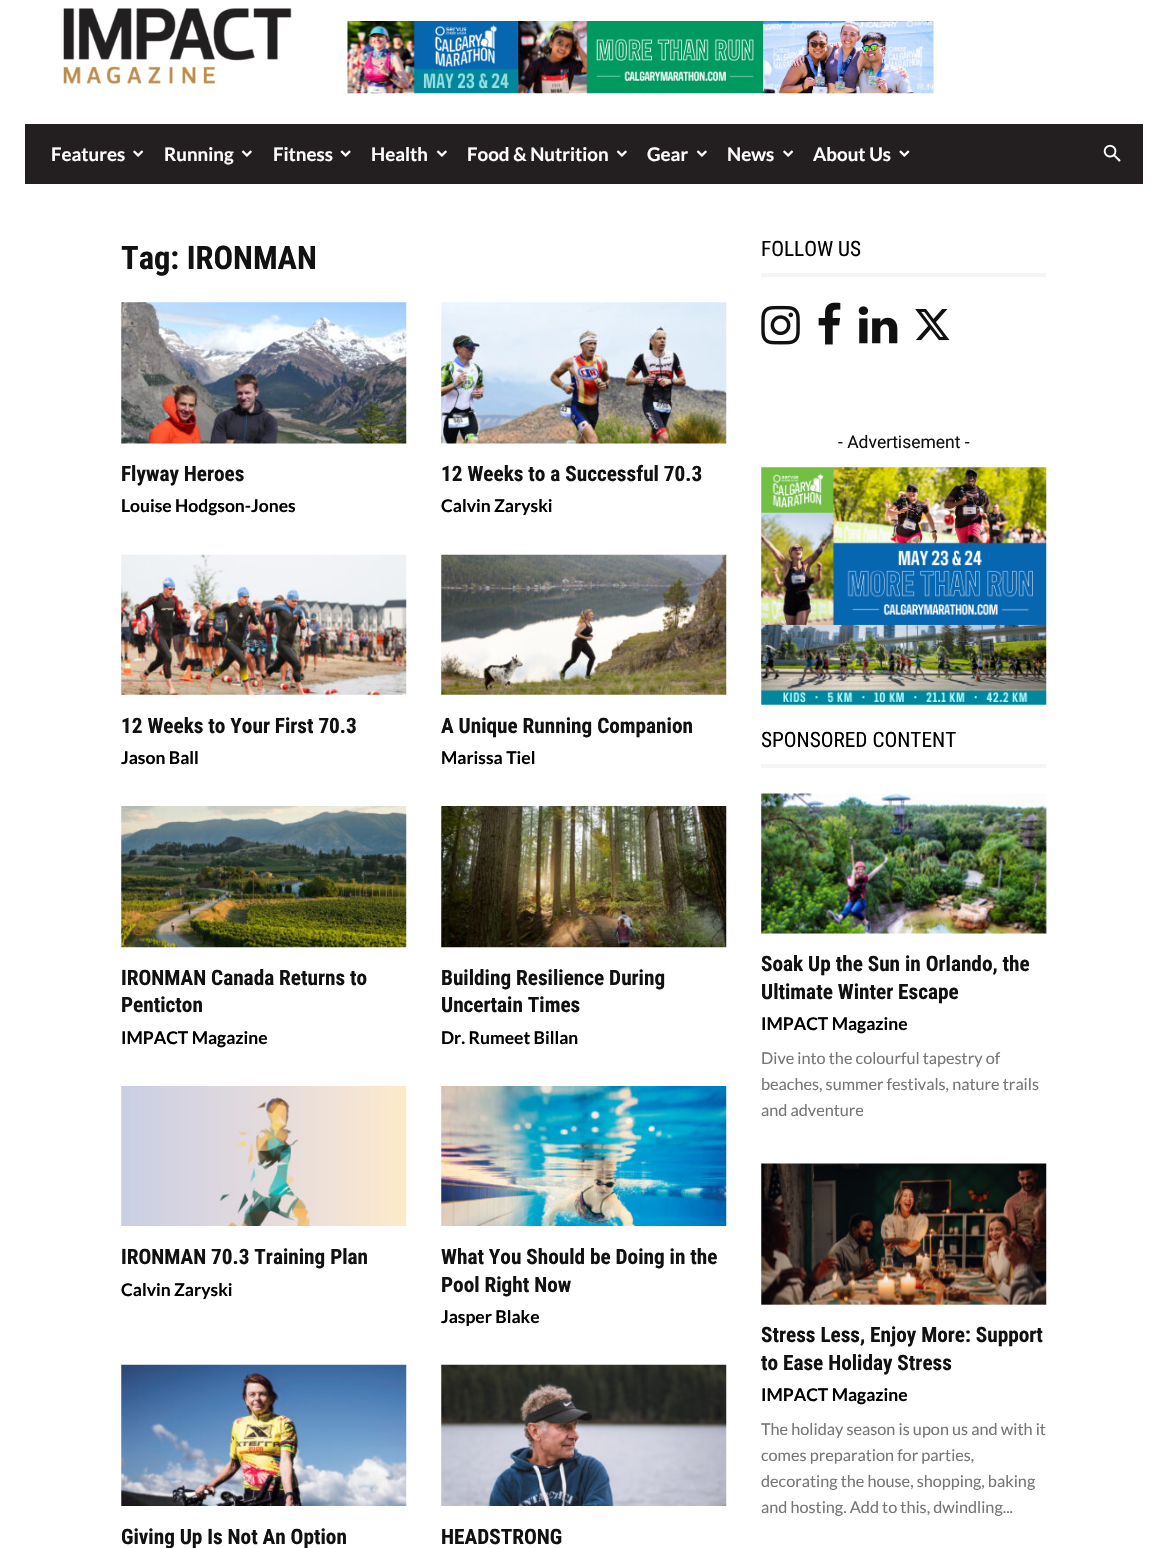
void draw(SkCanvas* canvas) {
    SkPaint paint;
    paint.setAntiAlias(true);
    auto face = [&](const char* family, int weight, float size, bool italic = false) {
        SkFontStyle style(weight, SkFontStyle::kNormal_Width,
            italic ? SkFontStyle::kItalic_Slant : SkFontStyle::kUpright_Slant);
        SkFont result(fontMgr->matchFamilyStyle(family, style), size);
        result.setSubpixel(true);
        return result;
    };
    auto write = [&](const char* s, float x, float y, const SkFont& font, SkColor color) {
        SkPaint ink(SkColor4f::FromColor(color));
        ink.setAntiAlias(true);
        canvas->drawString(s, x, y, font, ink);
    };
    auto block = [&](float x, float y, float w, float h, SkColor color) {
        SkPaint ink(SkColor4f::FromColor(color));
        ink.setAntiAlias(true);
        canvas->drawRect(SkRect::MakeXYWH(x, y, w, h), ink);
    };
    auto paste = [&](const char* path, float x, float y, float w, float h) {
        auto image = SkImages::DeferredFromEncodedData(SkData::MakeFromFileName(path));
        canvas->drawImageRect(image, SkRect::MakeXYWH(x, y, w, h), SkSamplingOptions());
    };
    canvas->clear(SK_ColorWHITE);
    paste("pic1.png", 63, 8, 229, 76);
    paste("pic2.png", 347, 21, 587, 73);
    block(25, 124, 1118, 60, SkColorSetRGB(35, 31, 32));
    auto kFont1 = face("Lato", 700, 18.75f);
    write("Features", 51, 161, kFont1, SK_ColorWHITE);
    paste("pic3.png", 133, 150, 11, 7);
    write("Running", 164, 161, kFont1, SK_ColorWHITE);
    paste("pic4.png", 241, 150, 11, 7);
    write("Fitness", 273, 161, kFont1, SK_ColorWHITE);
    paste("pic5.png", 340, 150, 11, 7);
    write("Health", 371, 161, kFont1, SK_ColorWHITE);
    paste("pic4.png", 436, 150, 11, 7);
    write("Food & Nutrition", 467, 161, kFont1, SK_ColorWHITE);
    paste("pic4.png", 616, 150, 11, 7);
    write("Gear", 647, 161, kFont1, SK_ColorWHITE);
    paste("pic4.png", 696, 150, 11, 7);
    write("News", 727, 161, kFont1, SK_ColorWHITE);
    paste("pic3.png", 783, 150, 11, 7);
    write("About Us", 813, 161, kFont1, SK_ColorWHITE);
    paste("pic6.png", 899, 150, 11, 7);
    paste("pic7.png", 1103, 144, 18, 18);
    auto kFont2 = face("Roboto Condensed", 700, 32.5f);
    write("Tag: IRONMAN", 121, 269, kFont2, SkColorSetRGB(17, 17, 17));
    paste("pic8.png", 121, 302, 286, 142);
    auto kFont3 = face("Roboto Condensed", 700, 21.25f);
    write("Flyway Heroes", 121, 481, kFont3, SkColorSetRGB(17, 17, 17));
    auto kFont4 = face("Lato", 700, 17.5f);
    write("Louise Hodgson-Jones", 121, 512, kFont4, SK_ColorBLACK);
    paste("pic9.png", 441, 302, 286, 142);
    write("12 Weeks to a Successful 70.3", 441, 481, kFont3, SkColorSetRGB(17, 17, 17));
    write("Calvin Zaryski", 441, 512, kFont4, SK_ColorBLACK);
    paste("pic10.png", 121, 554, 286, 141);
    write("12 Weeks to Your First 70.3", 121, 733, kFont3, SkColorSetRGB(17, 17, 17));
    write("Jason Ball", 121, 764, kFont4, SK_ColorBLACK);
    paste("pic11.png", 441, 554, 286, 141);
    write("A Unique Running Companion", 441, 733, kFont3, SkColorSetRGB(17, 17, 17));
    write("Marissa Tiel", 441, 764, kFont4, SK_ColorBLACK);
    paste("pic12.png", 121, 806, 286, 142);
    write("IRONMAN Canada Returns to", 121, 985, kFont3, SkColorSetRGB(17, 17, 17));
    write("Penticton", 121, 1012, kFont3, SkColorSetRGB(17, 17, 17));
    write("IMPACT Magazine", 121, 1044, kFont4, SK_ColorBLACK);
    paste("pic13.png", 441, 806, 286, 142);
    write("Building Resilience During", 441, 985, kFont3, SkColorSetRGB(17, 17, 17));
    write("Uncertain Times", 441, 1012, kFont3, SkColorSetRGB(17, 17, 17));
    write("Dr. Rumeet Billan", 441, 1044, kFont4, SK_ColorBLACK);
    paste("pic14.png", 121, 1086, 286, 140);
    write("IRONMAN 70.3 Training Plan", 121, 1264, kFont3, SkColorSetRGB(17, 17, 17));
    write("Calvin Zaryski", 121, 1296, kFont4, SK_ColorBLACK);
    paste("pic15.png", 441, 1086, 286, 140);
    write("What You Should be Doing in the", 441, 1264, kFont3, SkColorSetRGB(17, 17, 17));
    write("Pool Right Now", 441, 1292, kFont3, SkColorSetRGB(17, 17, 17));
    write("Jasper Blake", 441, 1323, kFont4, SK_ColorBLACK);
    paste("pic16.png", 121, 1364, 286, 142);
    write("Giving Up Is Not An Option", 121, 1544, kFont3, SkColorSetRGB(17, 17, 17));
    paste("pic17.png", 441, 1364, 286, 142);
    write("HEADSTRONG", 441, 1544, kFont3, SkColorSetRGB(17, 17, 17));
    auto kFont5 = face("Roboto Condensed", 400, 21.25f);
    write("FOLLOW US", 761, 256, kFont5, SK_ColorBLACK);
    block(761, 273, 285, 4, SkColorSetRGB(245, 245, 245));
    paste("pic18.png", 761, 305, 39, 40);
    paste("pic19.png", 818, 302, 23, 43);
    paste("pic20.png", 858, 306, 40, 38);
    paste("pic21.png", 915, 309, 35, 32);
    auto kFont6 = face("Roboto", 400, 17.5f);
    write("- Advertisement -", 838, 448, kFont6, SkColorSetRGB(17, 17, 17));
    paste("pic22.png", 761, 467, 286, 238);
    write("SPONSORED CONTENT", 761, 747, kFont5, SK_ColorBLACK);
    block(761, 764, 285, 4, SkColorSetRGB(245, 245, 245));
    paste("pic23.png", 761, 793, 286, 141);
    write("Soak Up the Sun in Orlando, the", 761, 971, kFont3, SkColorSetRGB(17, 17, 17));
    write("Ultimate Winter Escape", 761, 999, kFont3, SkColorSetRGB(17, 17, 17));
    write("IMPACT Magazine", 761, 1030, kFont4, SK_ColorBLACK);
    auto kFont7 = face("Lato", 400, 16.25f);
    write("Dive into the colourful tapestry of", 761, 1064, kFont7, SkColorSetRGB(118, 118, 118));
    write("beaches, summer festivals, nature trails", 761, 1090, kFont7, SkColorSetRGB(118, 118, 118));
    write("and adventure", 761, 1116, kFont7, SkColorSetRGB(118, 118, 118));
    paste("pic24.png", 761, 1163, 286, 142);
    write("Stress Less, Enjoy More: Support", 761, 1342, kFont3, SkColorSetRGB(17, 17, 17));
    write("to Ease Holiday Stress", 761, 1370, kFont3, SkColorSetRGB(17, 17, 17));
    write("IMPACT Magazine", 761, 1401, kFont4, SK_ColorBLACK);
    write("The holiday season is upon us and with it", 761, 1435, kFont7, SkColorSetRGB(118, 118, 118));
    write("comes preparation for parties,", 761, 1461, kFont7, SkColorSetRGB(118, 118, 118));
    write("decorating the house, shopping, baking", 761, 1487, kFont7, SkColorSetRGB(118, 118, 118));
    write("and hosting. Add to this, dwindling...", 761, 1513, kFont7, SkColorSetRGB(118, 118, 118));
}
